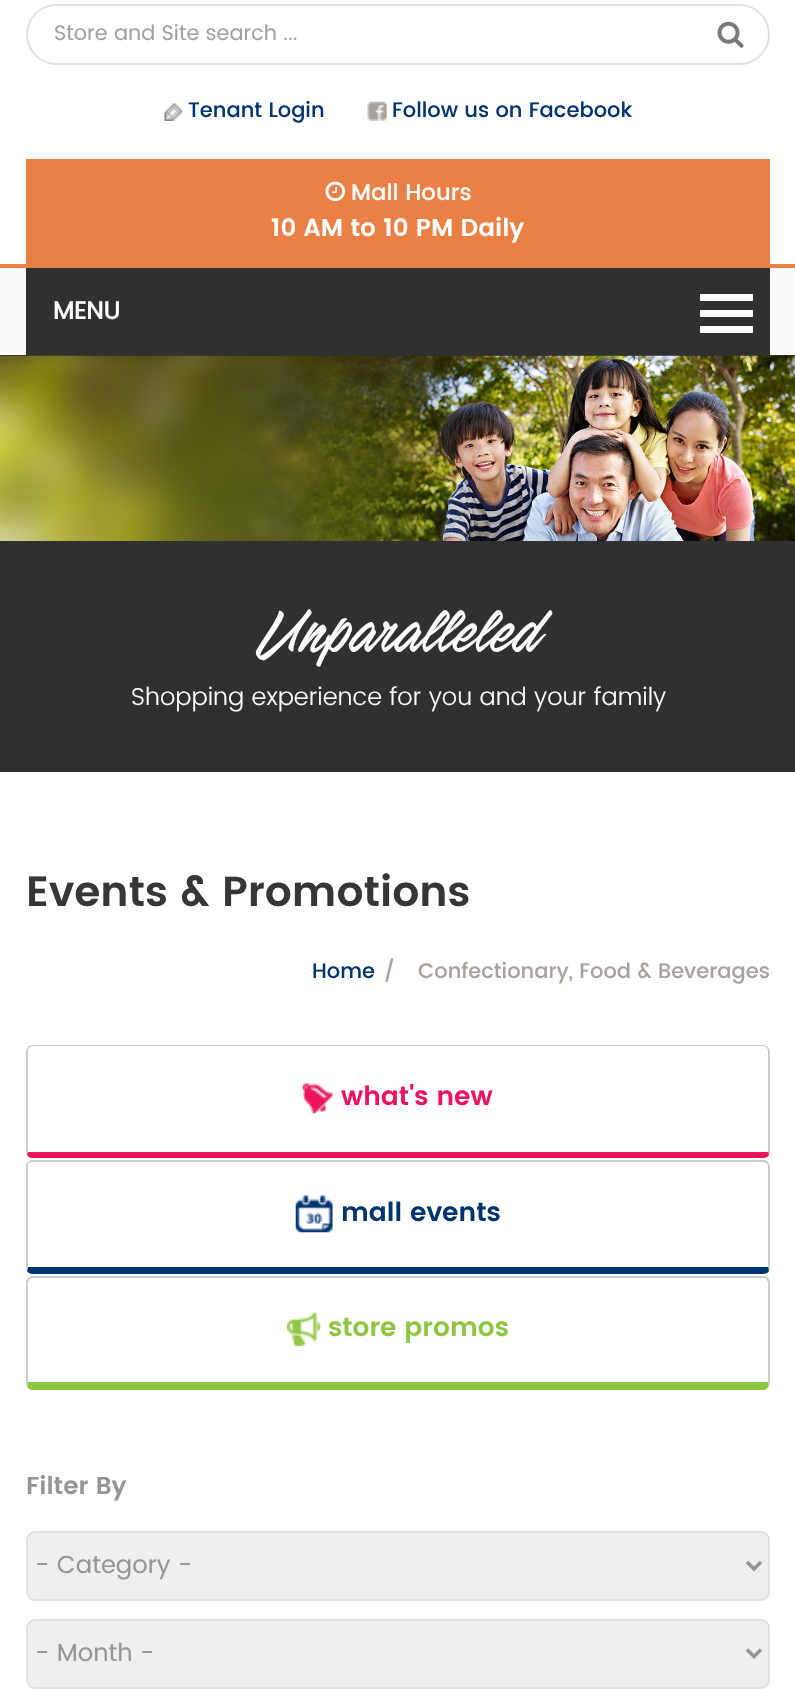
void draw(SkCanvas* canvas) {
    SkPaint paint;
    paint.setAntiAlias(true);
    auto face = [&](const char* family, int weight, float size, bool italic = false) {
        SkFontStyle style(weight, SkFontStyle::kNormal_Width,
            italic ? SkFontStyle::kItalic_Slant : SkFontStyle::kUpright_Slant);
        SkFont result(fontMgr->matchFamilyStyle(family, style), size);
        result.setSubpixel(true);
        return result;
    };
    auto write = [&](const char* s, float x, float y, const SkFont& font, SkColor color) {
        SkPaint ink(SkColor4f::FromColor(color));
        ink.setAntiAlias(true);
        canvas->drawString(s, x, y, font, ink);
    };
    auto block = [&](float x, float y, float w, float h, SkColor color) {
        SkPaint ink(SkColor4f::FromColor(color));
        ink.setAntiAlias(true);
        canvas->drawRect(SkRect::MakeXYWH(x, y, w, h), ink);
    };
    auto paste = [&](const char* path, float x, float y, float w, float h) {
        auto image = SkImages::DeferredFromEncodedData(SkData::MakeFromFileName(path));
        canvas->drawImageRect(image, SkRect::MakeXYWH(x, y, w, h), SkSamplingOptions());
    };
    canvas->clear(SK_ColorWHITE);
    block(0, 355, 795, 417, SkColorSetRGB(48, 48, 48));
    paste("pic5.png", 0, 355, 795, 186);
    canvas->save();
    canvas->clipRect(SkRect::MakeXYWH(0, 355, 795, 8));
    paint.setColor(SkColorSetARGB(26, 0, 0, 0));
    paint.setMaskFilter(SkMaskFilter::MakeBlur(kNormal_SkBlurStyle, 4.5f));
    canvas->drawRect(SkRect::MakeXYWH(-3, -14, 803, 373), paint);
    paint.setMaskFilter(nullptr);
    canvas->restore();
    paint.setStyle(SkPaint::kStroke_Style);
    paint.setStrokeWidth(2);
    paint.setColor(SkColorSetRGB(225, 225, 225));
    canvas->drawRoundRect(SkRect::MakeXYWH(27, 5, 742, 59), 29.5f, 29.5f, paint);
    auto kFont1 = face("Poppins", 400, 21);
    write("Store and Site search ...", 54, 40, kFont1, SkColorSetRGB(162, 162, 162));
    paste("pic1.png", 717, 21, 27, 27);
    paste("pic2.png", 164, 103, 18, 18);
    auto kFont2 = face("Poppins", 500, 21);
    write("Tenant Login", 188, 117, kFont2, SkColorSetRGB(0, 52, 113));
    paste("pic3.png", 367, 101, 20, 20);
    write("Follow us on Facebook", 392, 117, kFont2, SkColorSetRGB(0, 52, 113));
    block(26, 159, 744, 105, SkColorSetRGB(235, 128, 68));
    paste("pic4.png", 325, 181, 20, 21);
    auto kFont3 = face("Poppins", 500, 22.75f);
    write("Mall Hours", 351, 200, kFont3, SK_ColorWHITE);
    auto kFont4 = face("Poppins", 600, 24.5f);
    write("10 AM to 10 PM Daily", 271, 236, kFont4, SK_ColorWHITE);
    block(0, 268, 795, 87, SkColorSetRGB(250, 250, 250));
    block(0, 264, 795, 4, SkColorSetRGB(235, 128, 68));
    block(26, 268, 744, 87, SkColorSetRGB(48, 48, 48));
    block(700, 294, 53, 7, SK_ColorWHITE);
    auto kFont5 = face("Poppins", 700, 24.5f);
    write("MENU", 53, 319, kFont5, SK_ColorWHITE);
    block(700, 310, 53, 7, SK_ColorWHITE);
    block(700, 326, 53, 7, SK_ColorWHITE);
    auto kFont6 = face("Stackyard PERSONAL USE", 400, 70);
    write("Unparalleled", 255, 652, kFont6, SK_ColorWHITE);
    auto kFont7 = face("Poppins", 300, 24.5f);
    write("Shopping experience for you and your family", 131, 705, kFont7, SK_ColorWHITE);
    auto kFont8 = face("Poppins", 600, 42);
    write("Events & Promotions", 26, 906, kFont8, SkColorSetRGB(54, 54, 54));
    write("Home", 312, 978, kFont2, SkColorSetRGB(0, 52, 113));
    write("/", 384, 978, kFont2, SkColorSetRGB(169, 162, 156));
    write("Confectionary, Food & Beverages", 418, 978, kFont2, SkColorSetRGB(169, 162, 156));
    paint.setStyle(SkPaint::kFill_Style);
    paint.setColor(SkColorSetRGB(204, 204, 204));
    canvas->drawPath(SkPathBuilder().moveTo(33, 1045).cubicTo(31, 1045, 29, 1046, 28, 1047).lineTo(29, 1048).cubicTo(30, 1047, 32, 1046, 33, 1046).lineTo(763, 1046).cubicTo(765, 1046, 766, 1047, 767, 1048).lineTo(768, 1047).cubicTo(767, 1046, 765, 1045, 763, 1045).close().detach(), paint);
    canvas->drawPath(SkPathBuilder().moveTo(768, 1047).cubicTo(769, 1048, 770, 1050, 770, 1052).lineTo(770, 1152).lineTo(769, 1155).lineTo(768, 1150).lineTo(768, 1052).cubicTo(768, 1051, 768, 1049, 767, 1048).close().detach(), paint);
    paint.setColor(SkColorSetRGB(237, 20, 91));
    canvas->drawPath(SkPathBuilder().moveTo(769, 1155).cubicTo(768, 1157, 766, 1158, 763, 1158).lineTo(33, 1158).cubicTo(30, 1158, 28, 1157, 27, 1155).lineTo(28, 1152).lineTo(768, 1152).lineTo(768, 1150).close().detach(), paint);
    paint.setColor(SkColorSetRGB(204, 204, 204));
    canvas->drawPath(SkPathBuilder().moveTo(26, 1050).lineTo(28, 1047).lineTo(29, 1048).cubicTo(28, 1049, 28, 1050, 28, 1052).lineTo(28, 1152).lineTo(27, 1155).lineTo(26, 1154).close().detach(), paint);
    paste("pic6.png", 302, 1083, 31, 31);
    auto kFont9 = face("Poppins", 600, 26.25f);
    write("what's new", 341, 1105, kFont9, SkColorSetRGB(237, 20, 91));
    canvas->drawPath(SkPathBuilder().moveTo(33, 1162).cubicTo(32, 1162, 30, 1162, 29, 1163).lineTo(28, 1162).lineTo(31, 1160).lineTo(765, 1160).lineTo(768, 1162).lineTo(767, 1164).cubicTo(766, 1163, 765, 1162, 763, 1162).close().detach(), paint);
    canvas->drawPath(SkPathBuilder().moveTo(770, 1267).lineTo(770, 1166).lineTo(768, 1162).lineTo(767, 1164).cubicTo(768, 1164, 768, 1166, 768, 1167).lineTo(768, 1266).lineTo(769, 1271).close().detach(), paint);
    paint.setColor(SkColorSetRGB(0, 52, 113));
    canvas->drawPath(SkPathBuilder().moveTo(33, 1274).lineTo(763, 1274).cubicTo(766, 1274, 768, 1273, 769, 1271).lineTo(768, 1266).lineTo(768, 1267).lineTo(28, 1267).lineTo(27, 1271).cubicTo(28, 1273, 30, 1274, 33, 1274).close().detach(), paint);
    paint.setColor(SkColorSetRGB(204, 204, 204));
    canvas->drawPath(SkPathBuilder().moveTo(26, 1165).lineTo(28, 1162).lineTo(29, 1163).cubicTo(28, 1164, 28, 1166, 28, 1167).lineTo(28, 1267).lineTo(27, 1271).lineTo(26, 1269).close().detach(), paint);
    paste("pic7.png", 295, 1195, 38, 38);
    write("mall events", 341, 1221, kFont9, SkColorSetRGB(0, 52, 113));
    canvas->drawPath(SkPathBuilder().moveTo(33, 1276).cubicTo(31, 1276, 29, 1277, 28, 1278).lineTo(30, 1279).lineTo(33, 1278).lineTo(763, 1278).cubicTo(764, 1278, 766, 1278, 766, 1279).lineTo(768, 1278).cubicTo(767, 1277, 765, 1276, 763, 1276).close().detach(), paint);
    canvas->drawPath(SkPathBuilder().moveTo(768, 1278).cubicTo(769, 1279, 770, 1281, 770, 1283).lineTo(770, 1382).lineTo(769, 1386).lineTo(768, 1382).lineTo(768, 1283).cubicTo(768, 1281, 767, 1280, 766, 1279).close().detach(), paint);
    paint.setColor(SkColorSetRGB(141, 198, 63));
    canvas->drawPath(SkPathBuilder().moveTo(31, 1390).cubicTo(29, 1389, 28, 1388, 27, 1386).lineTo(28, 1382).lineTo(768, 1382).lineTo(769, 1386).cubicTo(768, 1387, 767, 1389, 765, 1390).close().detach(), paint);
    paint.setColor(SkColorSetRGB(204, 204, 204));
    canvas->drawPath(SkPathBuilder().moveTo(26, 1281).lineTo(28, 1278).lineTo(30, 1279).lineTo(28, 1282).lineTo(28, 1382).lineTo(27, 1386).lineTo(26, 1384).close().detach(), paint);
    paste("pic8.png", 287, 1312, 34, 34);
    write("store promos", 328, 1336, kFont9, SkColorSetRGB(141, 198, 63));
    write("Filter By", 26, 1494, kFont4, SkColorSetRGB(149, 149, 149));
    paint.setColor(SkColorSetRGB(239, 239, 239));
    canvas->drawRoundRect(SkRect::MakeXYWH(27, 1532, 742, 68), 8, 8, paint);
    paint.setStyle(SkPaint::kStroke_Style);
    paint.setColor(SkColorSetRGB(225, 225, 225));
    canvas->drawRoundRect(SkRect::MakeXYWH(27, 1532, 742, 68), 8, 8, paint);
    paint.setStrokeWidth(3.5f);
    paint.setColor(SkColorSetRGB(149, 149, 149));
    canvas->drawPath(SkPathBuilder().moveTo(747, 1562).lineTo(754, 1569).lineTo(761, 1562).detach(), paint);
    auto kFont10 = face("Poppins", 400, 24.5f);
    write("- Category -", 35, 1573, kFont10, SkColorSetRGB(149, 149, 149));
    paint.setStyle(SkPaint::kFill_Style);
    paint.setColor(SkColorSetRGB(239, 239, 239));
    canvas->drawRoundRect(SkRect::MakeXYWH(27, 1620, 742, 68), 8, 8, paint);
    paint.setStyle(SkPaint::kStroke_Style);
    paint.setStrokeWidth(2);
    paint.setColor(SkColorSetRGB(225, 225, 225));
    canvas->drawRoundRect(SkRect::MakeXYWH(27, 1620, 742, 68), 8, 8, paint);
    paint.setStrokeWidth(3.5f);
    paint.setColor(SkColorSetRGB(149, 149, 149));
    canvas->drawPath(SkPathBuilder().moveTo(747, 1649.5f).lineTo(754, 1656.5f).lineTo(761, 1649.5f).detach(), paint);
    write("- Month -", 35, 1661, kFont10, SkColorSetRGB(149, 149, 149));
}
